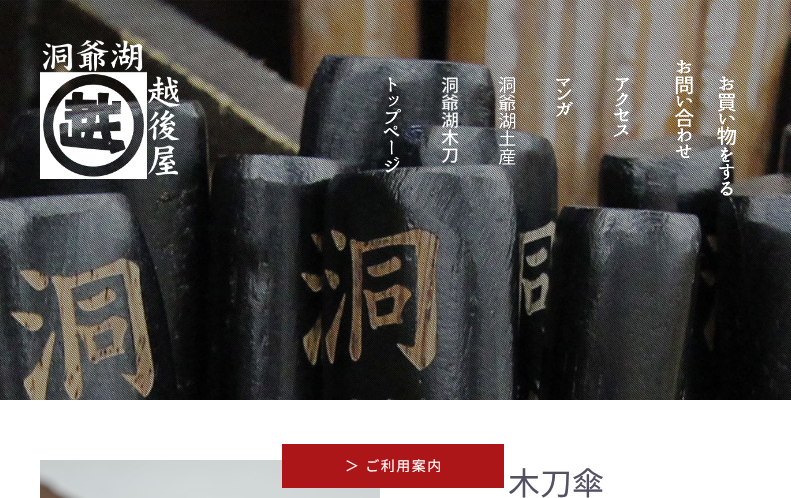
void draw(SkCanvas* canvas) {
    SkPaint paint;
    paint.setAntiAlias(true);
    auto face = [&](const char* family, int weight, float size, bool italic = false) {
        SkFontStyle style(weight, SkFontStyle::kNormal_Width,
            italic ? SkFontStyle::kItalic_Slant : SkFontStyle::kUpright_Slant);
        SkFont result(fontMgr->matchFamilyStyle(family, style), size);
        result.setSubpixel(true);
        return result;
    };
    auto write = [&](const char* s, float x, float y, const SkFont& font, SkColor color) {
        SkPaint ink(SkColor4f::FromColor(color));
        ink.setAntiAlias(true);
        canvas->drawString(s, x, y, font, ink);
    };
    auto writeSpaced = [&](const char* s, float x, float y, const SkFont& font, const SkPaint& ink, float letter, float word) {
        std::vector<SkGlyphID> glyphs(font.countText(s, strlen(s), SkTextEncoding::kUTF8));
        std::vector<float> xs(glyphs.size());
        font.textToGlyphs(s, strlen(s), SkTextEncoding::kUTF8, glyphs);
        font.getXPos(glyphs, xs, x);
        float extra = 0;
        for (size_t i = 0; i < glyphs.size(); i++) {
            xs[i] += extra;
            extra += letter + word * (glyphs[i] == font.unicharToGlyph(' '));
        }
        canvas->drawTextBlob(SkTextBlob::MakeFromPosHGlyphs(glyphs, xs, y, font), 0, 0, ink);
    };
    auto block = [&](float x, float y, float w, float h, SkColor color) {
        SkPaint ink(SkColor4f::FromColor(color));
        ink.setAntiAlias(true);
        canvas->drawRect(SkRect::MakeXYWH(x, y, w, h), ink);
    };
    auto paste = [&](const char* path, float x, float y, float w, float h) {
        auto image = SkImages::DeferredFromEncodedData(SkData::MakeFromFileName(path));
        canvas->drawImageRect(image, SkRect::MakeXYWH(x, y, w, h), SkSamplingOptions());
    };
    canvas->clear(SK_ColorWHITE);
    paste("pic1.png", 0, 0, 791, 400);
    paste("pic2.png", 40, 40, 140, 139);
    paste("pic3.png", 383, 77, 18, 96);
    paste("pic4.png", 441, 77, 18, 86);
    paste("pic5.png", 499, 77, 17, 88);
    paste("pic6.png", 555, 78, 18, 39);
    paste("pic7.png", 613, 77, 16, 60);
    paste("pic8.png", 674, 60, 20, 98);
    paste("pic9.png", 717, 76, 19, 120);
    paste("pic10.png", 40, 460, 340, 38);
    block(282, 444, 222, 44, SkColorSetRGB(173, 22, 25));
    auto kFont1 = face("Noto Sans JP", 400, 14);
    paint.setColor(SK_ColorWHITE);
    writeSpaced("＞ ご利用案内", 345, 471, kFont1, paint, 1.5f, 0);
    auto kFont2 = face("Noto Sans JP", 400, 32);
    write("木刀傘", 508, 495, kFont2, SkColorSetRGB(82, 82, 99));
}
